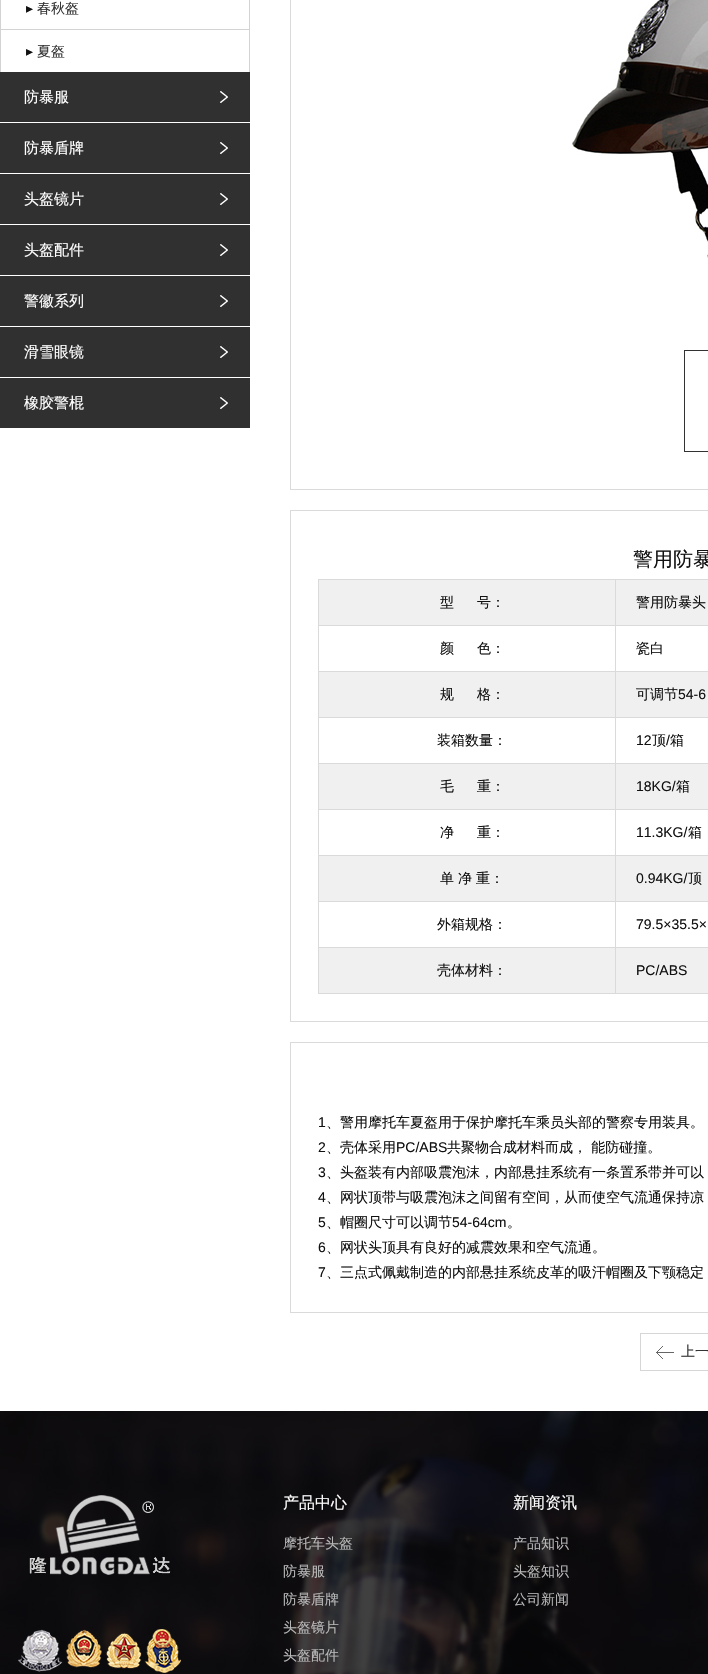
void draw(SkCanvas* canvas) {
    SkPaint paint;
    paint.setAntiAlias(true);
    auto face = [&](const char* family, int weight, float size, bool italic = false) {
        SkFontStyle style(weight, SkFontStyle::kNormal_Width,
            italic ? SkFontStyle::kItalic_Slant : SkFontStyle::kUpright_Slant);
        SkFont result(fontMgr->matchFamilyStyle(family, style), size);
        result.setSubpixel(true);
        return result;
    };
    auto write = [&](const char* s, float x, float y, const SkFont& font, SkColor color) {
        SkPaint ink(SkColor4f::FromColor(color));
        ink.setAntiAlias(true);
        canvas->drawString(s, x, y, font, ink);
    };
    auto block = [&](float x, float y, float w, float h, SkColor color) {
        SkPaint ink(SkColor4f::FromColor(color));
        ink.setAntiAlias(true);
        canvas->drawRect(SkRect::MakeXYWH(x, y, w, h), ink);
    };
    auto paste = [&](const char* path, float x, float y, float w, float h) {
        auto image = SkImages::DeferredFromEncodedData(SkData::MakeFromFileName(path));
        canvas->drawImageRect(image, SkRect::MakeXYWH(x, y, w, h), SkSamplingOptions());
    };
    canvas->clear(SK_ColorWHITE);
    block(249, 0, 1, 29, SkColorSetRGB(211, 211, 211));
    block(0, 0, 1, 29, SkColorSetRGB(211, 211, 211));
    auto kFont1 = face("DejaVu Sans", 400, 14);
    write("▸", 26, 13, kFont1, SkColorSetRGB(17, 17, 17));
    auto kFont2 = face("WenQuanYi Zen Hei", 500, 14);
    write("春秋盔", 37, 13, kFont2, SkColorSetRGB(51, 51, 51));
    block(0, 29, 250, 1, SkColorSetRGB(211, 211, 211));
    block(249, 29, 1, 43, SkColorSetRGB(211, 211, 211));
    block(0, 29, 1, 43, SkColorSetRGB(211, 211, 211));
    write("▸", 26, 56, kFont1, SkColorSetRGB(17, 17, 17));
    write("夏盔", 37, 56, kFont2, SkColorSetRGB(51, 51, 51));
    paste("pic1.png", 0, 72, 250, 50);
    auto kFont3 = face("WenQuanYi Zen Hei", 500, 15);
    write("防暴服", 24, 102, kFont3, SK_ColorWHITE);
    paste("pic1.png", 0, 123, 250, 50);
    write("防暴盾牌", 24, 153, kFont3, SK_ColorWHITE);
    paste("pic1.png", 0, 174, 250, 50);
    write("头盔镜片", 24, 204, kFont3, SK_ColorWHITE);
    paste("pic1.png", 0, 225, 250, 50);
    write("头盔配件", 24, 255, kFont3, SK_ColorWHITE);
    paste("pic1.png", 0, 276, 250, 50);
    write("警徽系列", 24, 306, kFont3, SK_ColorWHITE);
    paste("pic1.png", 0, 327, 250, 50);
    write("滑雪眼镜", 24, 357, kFont3, SK_ColorWHITE);
    paste("pic1.png", 0, 378, 250, 50);
    write("橡胶警棍", 24, 408, kFont3, SK_ColorWHITE);
    paint.setStyle(SkPaint::kStroke_Style);
    paint.setStrokeWidth(1);
    paint.setColor(SkColorSetRGB(218, 218, 218));
    canvas->drawRect(SkRect::MakeXYWH(290.5f, -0.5f, 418, 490), paint);
    paste("pic2.png", 572, 0, 136, 258);
    paint.setColor(SkColorSetRGB(50, 50, 50));
    canvas->drawRect(SkRect::MakeXYWH(684.5f, 350.5f, 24, 101), paint);
    paint.setColor(SkColorSetRGB(218, 218, 218));
    canvas->drawRect(SkRect::MakeXYWH(290.5f, 510.5f, 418, 511), paint);
    auto kFont4 = face("WenQuanYi Zen Hei", 500, 20);
    write("警用防暴", 633, 566, kFont4, SkColorSetRGB(17, 17, 17));
    block(318, 579, 390, 415, SkColorSetRGB(218, 218, 218));
    block(319, 580, 296, 45, SkColorSetRGB(240, 240, 240));
    write("型", 440, 607, kFont2, SkColorSetRGB(17, 17, 17));
    write("号：", 477, 607, kFont2, SkColorSetRGB(17, 17, 17));
    block(616, 580, 92, 45, SkColorSetRGB(240, 240, 240));
    write("警用防暴头", 636, 607, kFont2, SkColorSetRGB(17, 17, 17));
    block(319, 626, 296, 45, SK_ColorWHITE);
    write("颜", 440, 653, kFont2, SkColorSetRGB(17, 17, 17));
    write("色：", 477, 653, kFont2, SkColorSetRGB(17, 17, 17));
    block(616, 626, 92, 45, SK_ColorWHITE);
    write("瓷白", 636, 653, kFont2, SkColorSetRGB(17, 17, 17));
    block(319, 672, 296, 45, SkColorSetRGB(240, 240, 240));
    write("规", 440, 699, kFont2, SkColorSetRGB(17, 17, 17));
    write("格：", 477, 699, kFont2, SkColorSetRGB(17, 17, 17));
    block(616, 672, 92, 45, SkColorSetRGB(240, 240, 240));
    write("可调节", 636, 699, kFont2, SkColorSetRGB(17, 17, 17));
    auto kFont5 = face("Liberation Sans", 400, 14);
    write("54-6", 678, 699, kFont5, SkColorSetRGB(17, 17, 17));
    block(319, 718, 296, 45, SK_ColorWHITE);
    write("装箱数量：", 437, 745, kFont2, SkColorSetRGB(17, 17, 17));
    block(616, 718, 92, 45, SK_ColorWHITE);
    write("12", 636, 745, kFont5, SkColorSetRGB(17, 17, 17));
    write("顶", 652, 745, kFont2, SkColorSetRGB(17, 17, 17));
    write("/", 666, 745, kFont5, SkColorSetRGB(17, 17, 17));
    write("箱", 670, 745, kFont2, SkColorSetRGB(17, 17, 17));
    block(319, 764, 296, 45, SkColorSetRGB(240, 240, 240));
    write("毛", 440, 791, kFont2, SkColorSetRGB(17, 17, 17));
    write("重：", 477, 791, kFont2, SkColorSetRGB(17, 17, 17));
    block(616, 764, 92, 45, SkColorSetRGB(240, 240, 240));
    write("18KG/", 636, 791, kFont5, SkColorSetRGB(17, 17, 17));
    write("箱", 676, 791, kFont2, SkColorSetRGB(17, 17, 17));
    block(319, 810, 296, 45, SK_ColorWHITE);
    write("净", 440, 837, kFont2, SkColorSetRGB(17, 17, 17));
    write("重：", 477, 837, kFont2, SkColorSetRGB(17, 17, 17));
    block(616, 810, 92, 45, SK_ColorWHITE);
    write("11.3KG/", 636, 837, kFont5, SkColorSetRGB(17, 17, 17));
    write("箱", 688, 837, kFont2, SkColorSetRGB(17, 17, 17));
    block(319, 856, 296, 45, SkColorSetRGB(240, 240, 240));
    write("单", 440, 883, kFont2, SkColorSetRGB(17, 17, 17));
    write("净", 458, 883, kFont2, SkColorSetRGB(17, 17, 17));
    write("重：", 476, 883, kFont2, SkColorSetRGB(17, 17, 17));
    block(616, 856, 92, 45, SkColorSetRGB(240, 240, 240));
    write("0.94KG/", 636, 883, kFont5, SkColorSetRGB(17, 17, 17));
    write("顶", 688, 883, kFont2, SkColorSetRGB(17, 17, 17));
    block(319, 902, 296, 45, SK_ColorWHITE);
    write("外箱规格：", 437, 929, kFont2, SkColorSetRGB(17, 17, 17));
    block(616, 902, 92, 45, SK_ColorWHITE);
    write("79.5×35.5×", 636, 929, kFont5, SkColorSetRGB(17, 17, 17));
    block(319, 948, 296, 45, SkColorSetRGB(240, 240, 240));
    write("壳体材料：", 437, 975, kFont2, SkColorSetRGB(17, 17, 17));
    block(616, 948, 92, 45, SkColorSetRGB(240, 240, 240));
    write("PC/ABS", 636, 975, kFont5, SkColorSetRGB(17, 17, 17));
    canvas->drawRect(SkRect::MakeXYWH(290.5f, 1042.5f, 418, 270), paint);
    write("1", 318, 1127, kFont5, SkColorSetRGB(17, 17, 17));
    write("、警用摩托车夏盔用于保护摩托车乘员头部的警察专用装具。", 326, 1127, kFont2, SkColorSetRGB(17, 17, 17));
    write("2", 318, 1152, kFont5, SkColorSetRGB(17, 17, 17));
    write("、壳体采用", 326, 1152, kFont2, SkColorSetRGB(17, 17, 17));
    write("PC/ABS", 396, 1152, kFont5, SkColorSetRGB(17, 17, 17));
    write("共聚物合成材料而成， 能防碰撞。", 447, 1152, kFont2, SkColorSetRGB(17, 17, 17));
    write("3", 318, 1177, kFont5, SkColorSetRGB(17, 17, 17));
    write("、头盔装有内部吸震泡沫，内部悬挂系统有一条置系带并可以", 326, 1177, kFont2, SkColorSetRGB(17, 17, 17));
    write("4", 318, 1202, kFont5, SkColorSetRGB(17, 17, 17));
    write("、网状顶带与吸震泡沫之间留有空间，从而使空气流通保持凉", 326, 1202, kFont2, SkColorSetRGB(17, 17, 17));
    write("5", 318, 1227, kFont5, SkColorSetRGB(17, 17, 17));
    write("、帽圈尺寸可以调节", 326, 1227, kFont2, SkColorSetRGB(17, 17, 17));
    write("54-64cm", 452, 1227, kFont5, SkColorSetRGB(17, 17, 17));
    write("。", 507, 1227, kFont2, SkColorSetRGB(17, 17, 17));
    write("6", 318, 1252, kFont5, SkColorSetRGB(17, 17, 17));
    write("、网状头顶具有良好的减震效果和空气流通。", 326, 1252, kFont2, SkColorSetRGB(17, 17, 17));
    write("7", 318, 1277, kFont5, SkColorSetRGB(17, 17, 17));
    write("、三点式佩戴制造的内部悬挂系统皮革的吸汗帽圈及下颚稳定", 326, 1277, kFont2, SkColorSetRGB(17, 17, 17));
    paste("pic3.png", 656, 1346, 18, 13);
    paint.setColor(SkColorSetRGB(214, 214, 214));
    canvas->drawRect(SkRect::MakeXYWH(640.5f, 1333.5f, 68, 37), paint);
    write("上一", 681, 1356, kFont2, SkColorSetRGB(51, 51, 51));
    paste("pic4.png", 0, 1411, 708, 263);
    paste("pic5.png", 29, 1495, 142, 80);
    paste("pic6.png", 18, 1629, 163, 44);
    auto kFont6 = face("WenQuanYi Zen Hei", 500, 16);
    write("产品中心", 283, 1508, kFont6, SK_ColorWHITE);
    write("摩托车头盔", 283, 1548, kFont2, SkColorSetRGB(184, 184, 185));
    write("防暴服", 283, 1576, kFont2, SkColorSetRGB(184, 184, 185));
    write("防暴盾牌", 283, 1604, kFont2, SkColorSetRGB(184, 184, 185));
    write("头盔镜片", 283, 1632, kFont2, SkColorSetRGB(184, 184, 185));
    write("头盔配件", 283, 1660, kFont2, SkColorSetRGB(184, 184, 185));
    write("新闻资讯", 513, 1508, kFont6, SK_ColorWHITE);
    write("产品知识", 513, 1548, kFont2, SkColorSetRGB(184, 184, 185));
    write("头盔知识", 513, 1576, kFont2, SkColorSetRGB(184, 184, 185));
    write("公司新闻", 513, 1604, kFont2, SkColorSetRGB(184, 184, 185));
}
